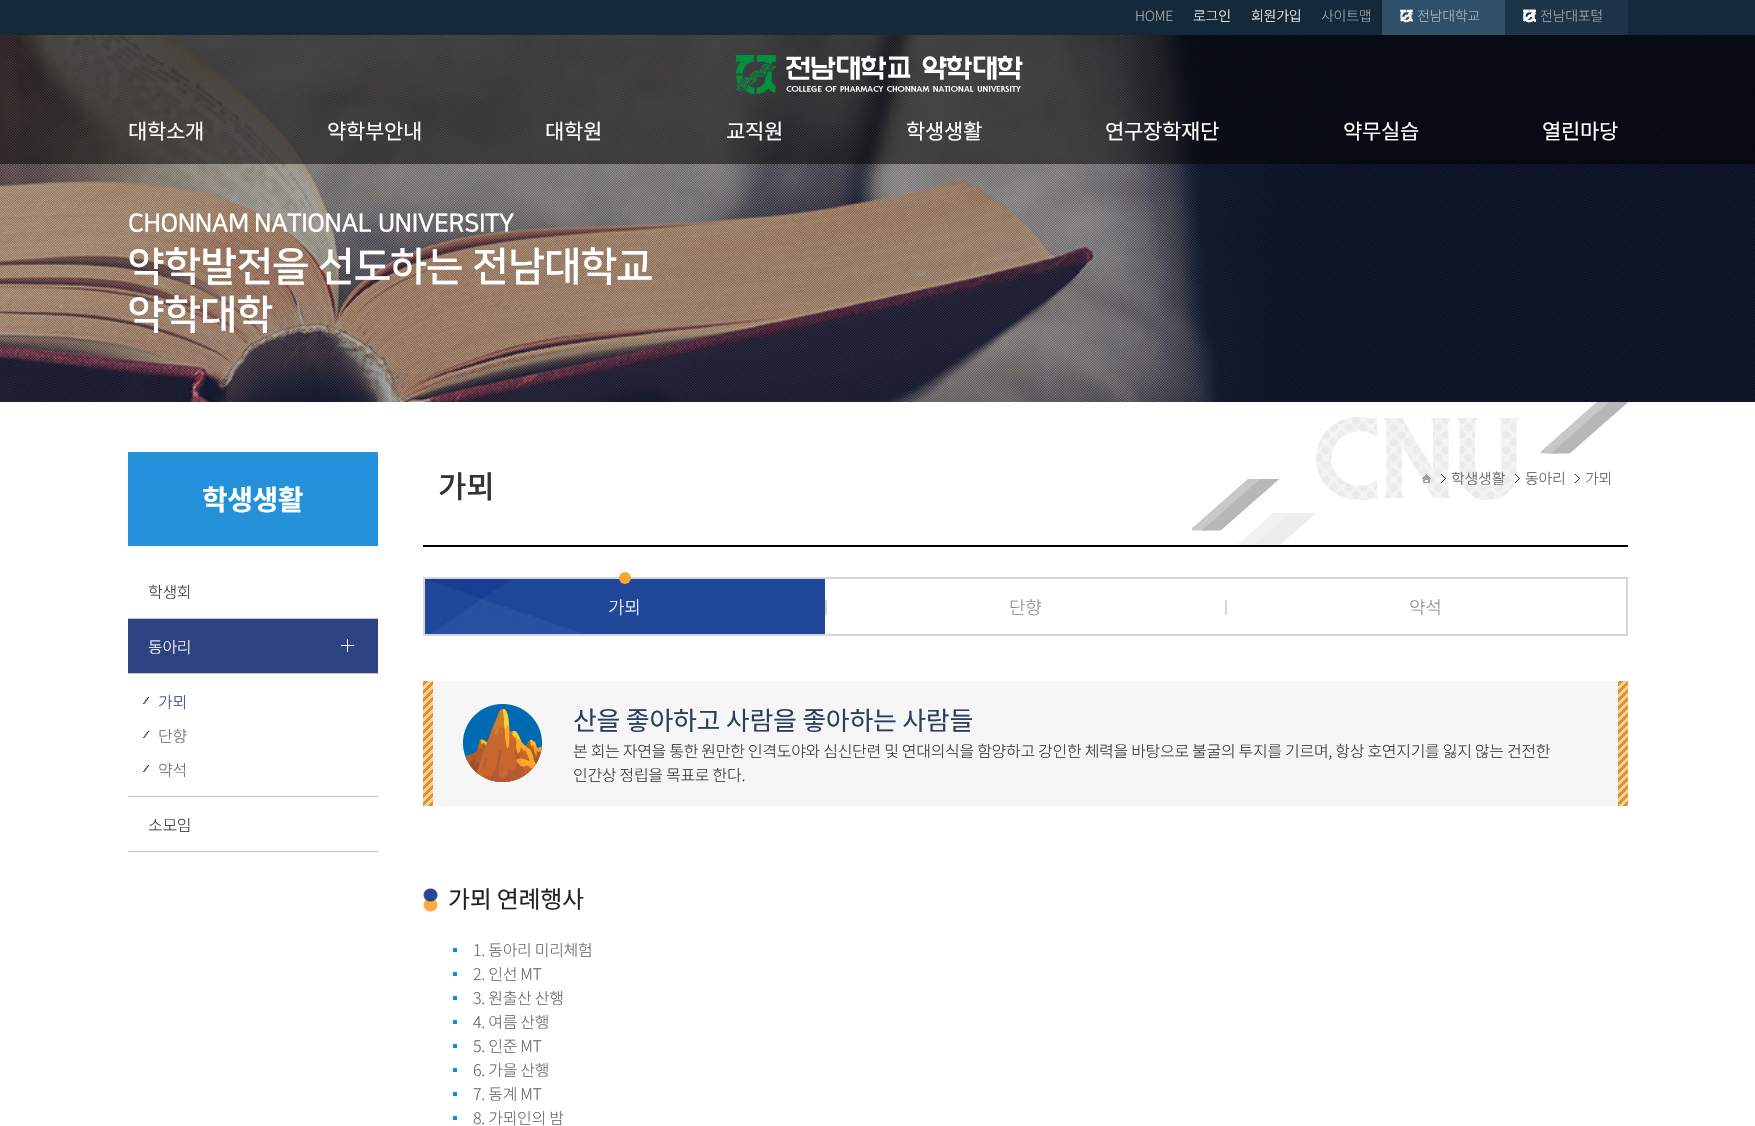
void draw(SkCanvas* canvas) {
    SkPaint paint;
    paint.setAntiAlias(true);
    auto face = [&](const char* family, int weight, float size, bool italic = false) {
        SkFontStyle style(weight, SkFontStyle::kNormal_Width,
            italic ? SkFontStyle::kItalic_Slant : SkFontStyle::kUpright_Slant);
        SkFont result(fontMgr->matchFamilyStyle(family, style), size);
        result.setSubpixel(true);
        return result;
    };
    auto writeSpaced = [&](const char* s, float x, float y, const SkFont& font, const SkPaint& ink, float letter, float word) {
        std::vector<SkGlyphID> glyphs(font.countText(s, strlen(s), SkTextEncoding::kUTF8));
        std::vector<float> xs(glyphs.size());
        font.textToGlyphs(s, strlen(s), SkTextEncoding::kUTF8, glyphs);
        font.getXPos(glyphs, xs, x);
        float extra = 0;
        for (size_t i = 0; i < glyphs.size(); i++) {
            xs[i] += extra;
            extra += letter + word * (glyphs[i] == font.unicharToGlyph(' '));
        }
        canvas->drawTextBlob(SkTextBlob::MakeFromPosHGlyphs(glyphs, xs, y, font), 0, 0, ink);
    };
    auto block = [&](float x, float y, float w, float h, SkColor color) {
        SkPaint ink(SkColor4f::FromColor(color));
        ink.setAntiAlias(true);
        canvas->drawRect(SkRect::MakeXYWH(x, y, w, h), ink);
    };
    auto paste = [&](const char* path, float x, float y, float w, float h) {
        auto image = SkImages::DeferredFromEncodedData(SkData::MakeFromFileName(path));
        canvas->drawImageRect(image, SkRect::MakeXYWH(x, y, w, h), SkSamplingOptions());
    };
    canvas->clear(SK_ColorWHITE);
    block(0, 0, 1755, 35, SkColorSetRGB(20, 41, 57));
    auto kFont1 = face("Noto Sans KR", 300, 14);
    paint.setColor(SkColorSetRGB(166, 174, 180));
    writeSpaced("HOME", 1135, 21, kFont1, paint, -0.3f, 0);
    paint.setColor(SK_ColorWHITE);
    writeSpaced("로그인", 1193, 21, kFont1, paint, -0.3f, 0);
    writeSpaced("회원가입", 1251, 21, kFont1, paint, -0.3f, 0);
    paint.setColor(SkColorSetRGB(166, 174, 180));
    writeSpaced("사이트맵", 1321, 21, kFont1, paint, -0.3f, 0);
    block(1382, 0, 123, 35, SkColorSetRGB(48, 80, 106));
    paste("pic1.png", 1400, 9, 13, 14);
    paint.setColor(SkColorSetRGB(176, 189, 198));
    writeSpaced("전남대학교", 1417, 21, kFont1, paint, -0.3f, 0);
    block(1505, 0, 123, 35, SkColorSetRGB(29, 53, 72));
    paste("pic2.png", 1523, 9, 13, 14);
    paste("pic3.png", 1523, 9, 13, 14);
    paint.setColor(SkColorSetRGB(166, 174, 180));
    writeSpaced("전남대포털", 1540, 21, kFont1, paint, -0.3f, 0);
    paste("pic5.png", 0, 35, 1755, 367);
    paste("pic6.png", 0, 35, 1755, 367);
    block(0, 35, 1755, 129, SkColorSetARGB(130, 0, 0, 0));
    paste("pic4.png", 736, 55, 287, 39);
    auto kFont2 = face("Noto Sans KR", 400, 21);
    paint.setColor(SK_ColorWHITE);
    writeSpaced("대학소개", 128, 139, kFont2, paint, -0.3f, 0);
    writeSpaced("약학부안내", 327, 139, kFont2, paint, -0.3f, 0);
    writeSpaced("대학원", 545, 139, kFont2, paint, -0.3f, 0);
    writeSpaced("교직원", 726, 139, kFont2, paint, -0.3f, 0);
    writeSpaced("학생생활", 906, 139, kFont2, paint, -0.3f, 0);
    writeSpaced("연구장학재단", 1105, 139, kFont2, paint, -0.3f, 0);
    writeSpaced("약무실습", 1343, 139, kFont2, paint, -0.3f, 0);
    writeSpaced("열린마당", 1542, 139, kFont2, paint, -0.3f, 0);
    auto kFont3 = face("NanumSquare", 700, 25);
    writeSpaced("CHONNAM", 128, 231, kFont3, paint, -0.5f, 0);
    writeSpaced("NATIONAL", 254, 231, kFont3, paint, -0.5f, 0);
    writeSpaced("UNIVERSITY", 378, 231, kFont3, paint, -0.5f, 0);
    auto kFont4 = face("NanumSquare", 700, 40);
    writeSpaced("약학발전을", 128, 279, kFont4, paint, -0.25f, 0);
    writeSpaced("선도하는", 318, 279, kFont4, paint, -0.25f, 0);
    writeSpaced("전남대학교", 472, 279, kFont4, paint, -0.25f, 0);
    writeSpaced("약학대학", 128, 327, kFont4, paint, -0.25f, 0);
    block(128, 452, 250, 94, SkColorSetRGB(37, 145, 218));
    auto kFont5 = face("Noto Sans KR", 700, 28);
    writeSpaced("학생생활", 202, 510, kFont5, paint, -0.5f, 0);
    block(128, 618, 250, 1, SkColorSetRGB(197, 197, 197));
    auto kFont6 = face("Noto Sans KR", 300, 16);
    paint.setColor(SkColorSetRGB(51, 51, 51));
    writeSpaced("학생회", 148, 598, kFont6, paint, -0.3f, 0);
    block(128, 619, 250, 54, SkColorSetRGB(43, 67, 128));
    paste("pic7.png", 341, 639, 13, 13);
    block(128, 673, 250, 1, SkColorSetRGB(197, 197, 197));
    paint.setColor(SK_ColorWHITE);
    writeSpaced("동아리", 148, 653, kFont6, paint, -0.3f, 0);
    block(128, 796, 250, 1, SkColorSetRGB(197, 197, 197));
    paste("pic8.png", 143, 697, 6, 7);
    paint.setColor(SkColorSetRGB(43, 67, 128));
    writeSpaced("가뫼", 158, 708, kFont6, paint, -0.3f, 0);
    paste("pic8.png", 143, 731, 6, 7);
    paint.setColor(SkColorSetRGB(102, 102, 102));
    writeSpaced("단향", 158, 742, kFont6, paint, -0.3f, 0);
    paste("pic8.png", 143, 765, 6, 7);
    writeSpaced("약석", 158, 776, kFont6, paint, -0.3f, 0);
    block(128, 851, 250, 1, SkColorSetRGB(197, 197, 197));
    paint.setColor(SkColorSetRGB(51, 51, 51));
    writeSpaced("소모임", 148, 831, kFont6, paint, -0.3f, 0);
    paste("pic9.png", 1192, 402, 436, 143);
    block(423, 545, 1205, 2, SK_ColorBLACK);
    auto kFont7 = face("Noto Sans KR", 500, 31);
    writeSpaced("가뫼", 438, 498, kFont7, paint, -0.3f, 0);
    paste("pic10.png", 1422, 474, 9, 9);
    paste("pic11.png", 1441, 474, 5, 9);
    auto kFont8 = face("Noto Sans KR", 300, 15);
    paint.setColor(SkColorSetRGB(85, 85, 85));
    writeSpaced("학생생활", 1451, 484, kFont8, paint, -0.25f, 0);
    paste("pic12.png", 1515, 474, 5, 9);
    writeSpaced("동아리", 1525, 484, kFont8, paint, -0.25f, 0);
    paste("pic13.png", 1575, 474, 5, 9);
    writeSpaced("가뫼", 1585, 484, kFont8, paint, -0.25f, 0);
    paint.setStyle(SkPaint::kStroke_Style);
    paint.setStrokeWidth(2);
    paint.setColor(SkColorSetRGB(214, 214, 214));
    canvas->drawRect(SkRect::MakeXYWH(424, 578, 1203, 57), paint);
    block(583, 579, 242, 55, SkColorSetRGB(31, 71, 154));
    paste("pic14.png", 425, 579, 158, 55);
    paint.setStyle(SkPaint::kFill_Style);
    paint.setColor(SkColorSetRGB(250, 166, 53));
    canvas->drawCircle(625, 578, 6, paint);
    auto kFont9 = face("Noto Sans KR", 300, 18);
    paint.setColor(SK_ColorWHITE);
    writeSpaced("가뫼", 608, 614, kFont9, paint, -0.3f, 0);
    block(825, 600, 2, 15, SkColorSetRGB(214, 214, 214));
    paint.setColor(SkColorSetRGB(136, 136, 136));
    writeSpaced("단향", 1009, 614, kFont9, paint, -0.3f, 0);
    block(1225, 600, 2, 15, SkColorSetRGB(214, 214, 214));
    writeSpaced("약석", 1409, 614, kFont9, paint, -0.3f, 0);
    block(433, 681, 1185, 125, SkColorSetRGB(246, 246, 246));
    paste("pic15.png", 423, 681, 10, 125);
    paste("pic16.png", 463, 704, 79, 78);
    auto kFont10 = face("Noto Sans KR", 400, 26);
    paint.setColor(SkColorSetRGB(43, 62, 92));
    writeSpaced("산을 좋아하고 사람을 좋아하는 사람들", 573, 730, kFont10, paint, -0.3f, 0);
    paint.setColor(SkColorSetRGB(51, 51, 51));
    writeSpaced("본 회는 자연을 통한 원만한 인격도야와 심신단련 및 연대의식을 함양하고 강인한 체력을 바탕으로 불굴의 투지를 기르며, 항상 호연지기를 잃지 않는 건전한", 573, 757, kFont6, paint, -0.3f, 0);
    writeSpaced("인간상 정립을 목표로 한다.", 573, 781, kFont6, paint, -0.3f, 0);
    paste("pic15.png", 1618, 681, 10, 125);
    paste("pic17.png", 423, 888, 15, 24);
    auto kFont11 = face("Noto Sans KR", 400, 24);
    paint.setColor(SkColorSetRGB(34, 34, 34));
    writeSpaced("가뫼 연례행사", 448, 908, kFont11, paint, -0.3f, 0);
    block(453, 948, 4, 4, SkColorSetRGB(1, 140, 255));
    paint.setColor(SkColorSetRGB(102, 102, 102));
    writeSpaced("1. 동아리 미리체험", 473, 956, kFont6, paint, -0.3f, 0);
    block(453, 972, 4, 4, SkColorSetRGB(1, 140, 255));
    writeSpaced("2. 인선 MT", 473, 980, kFont6, paint, -0.3f, 0);
    block(453, 996, 4, 4, SkColorSetRGB(1, 140, 255));
    writeSpaced("3. 원출산 산행", 473, 1004, kFont6, paint, -0.3f, 0);
    block(453, 1020, 4, 4, SkColorSetRGB(1, 140, 255));
    writeSpaced("4. 여름 산행", 473, 1028, kFont6, paint, -0.3f, 0);
    block(453, 1044, 4, 4, SkColorSetRGB(1, 140, 255));
    writeSpaced("5. 인준 MT", 473, 1052, kFont6, paint, -0.3f, 0);
    block(453, 1068, 4, 4, SkColorSetRGB(1, 140, 255));
    writeSpaced("6. 가을 산행", 473, 1076, kFont6, paint, -0.3f, 0);
    block(453, 1092, 4, 4, SkColorSetRGB(1, 140, 255));
    writeSpaced("7. 동계 MT", 473, 1100, kFont6, paint, -0.3f, 0);
    block(453, 1116, 4, 4, SkColorSetRGB(1, 140, 255));
    writeSpaced("8. 가뫼인의 밤", 473, 1124, kFont6, paint, -0.3f, 0);
}
